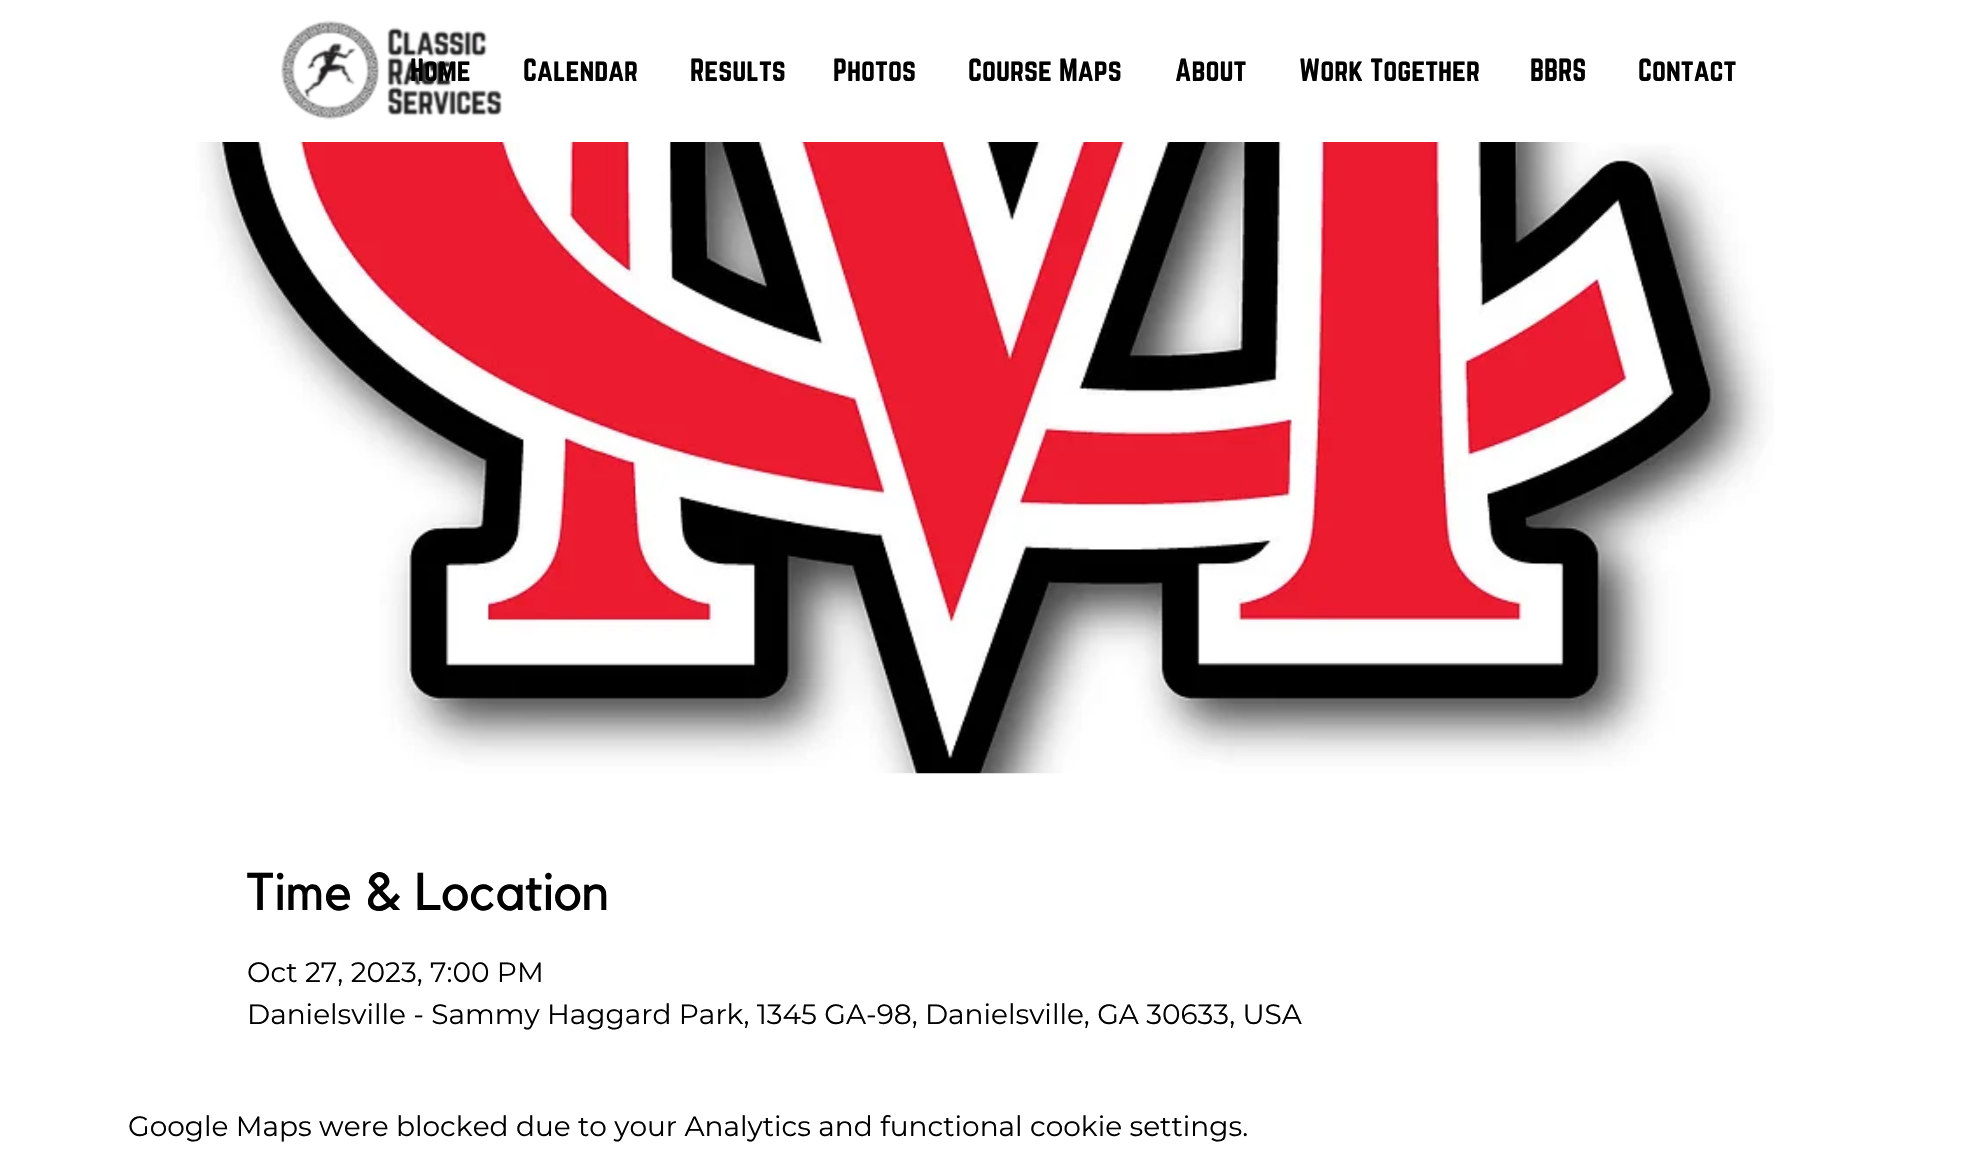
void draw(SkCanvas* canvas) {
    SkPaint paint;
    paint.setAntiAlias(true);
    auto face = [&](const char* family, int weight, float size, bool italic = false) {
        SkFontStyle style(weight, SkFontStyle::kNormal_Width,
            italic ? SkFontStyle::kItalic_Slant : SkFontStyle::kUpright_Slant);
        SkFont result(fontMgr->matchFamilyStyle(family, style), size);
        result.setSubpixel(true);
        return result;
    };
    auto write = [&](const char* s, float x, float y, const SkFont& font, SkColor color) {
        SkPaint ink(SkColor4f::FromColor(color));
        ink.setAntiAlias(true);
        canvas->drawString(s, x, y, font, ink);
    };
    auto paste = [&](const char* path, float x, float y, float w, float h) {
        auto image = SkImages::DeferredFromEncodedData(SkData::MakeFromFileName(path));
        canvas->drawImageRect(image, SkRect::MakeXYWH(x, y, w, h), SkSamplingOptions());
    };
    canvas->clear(SK_ColorWHITE);
    paste("pic1.png", 281, 20, 221, 100);
    auto kFont1 = face("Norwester", 400, 28);
    write("Home", 410, 81, kFont1, SK_ColorBLACK);
    write("Calendar", 523, 81, kFont1, SK_ColorBLACK);
    write("Results", 690, 81, kFont1, SK_ColorBLACK);
    write("Photos", 833, 81, kFont1, SK_ColorBLACK);
    write("Course Maps", 968, 81, kFont1, SK_ColorBLACK);
    write("About", 1175, 81, kFont1, SK_ColorBLACK);
    write("Work Together", 1299, 81, kFont1, SK_ColorBLACK);
    write("BBRS", 1530, 81, kFont1, SK_ColorBLACK);
    write("Contact", 1638, 81, kFont1, SK_ColorBLACK);
    paste("pic2.png", 195, 142, 1579, 632);
    auto kFont2 = face("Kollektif", 400, 52.5f);
    write("Time & Location", 247, 910, kFont2, SK_ColorBLACK);
    auto kFont3 = face("Montserrat", 400, 28);
    write("Oct 27, 2023, 7:00 PM", 247, 982, kFont3, SK_ColorBLACK);
    write("Danielsville - Sammy Haggard Park, 1345 GA-98, Danielsville, GA 30633, USA", 247, 1024, kFont3, SK_ColorBLACK);
    write("Google Maps were blocked due to your Analytics and functional cookie settings.", 128, 1136, kFont3, SK_ColorBLACK);
}
